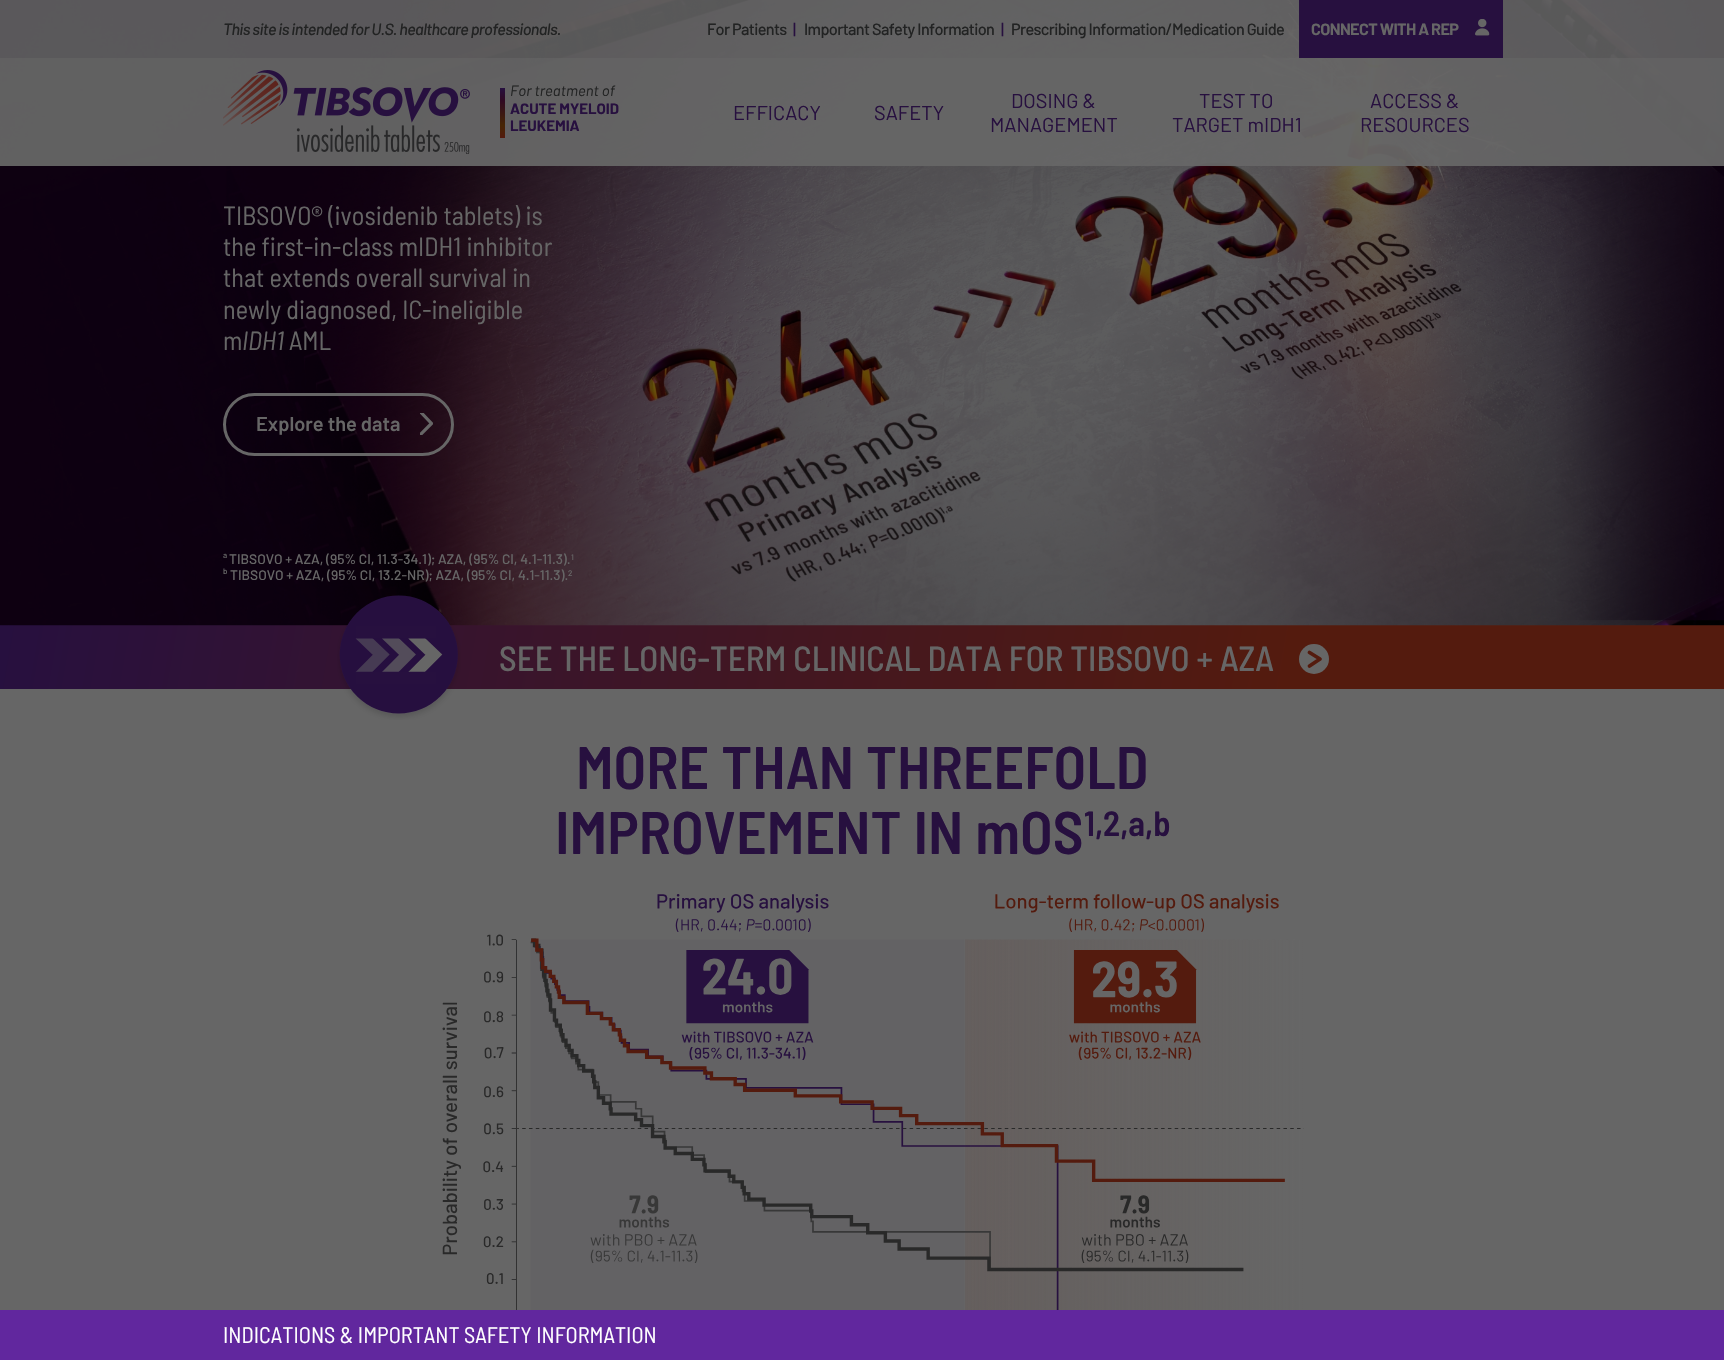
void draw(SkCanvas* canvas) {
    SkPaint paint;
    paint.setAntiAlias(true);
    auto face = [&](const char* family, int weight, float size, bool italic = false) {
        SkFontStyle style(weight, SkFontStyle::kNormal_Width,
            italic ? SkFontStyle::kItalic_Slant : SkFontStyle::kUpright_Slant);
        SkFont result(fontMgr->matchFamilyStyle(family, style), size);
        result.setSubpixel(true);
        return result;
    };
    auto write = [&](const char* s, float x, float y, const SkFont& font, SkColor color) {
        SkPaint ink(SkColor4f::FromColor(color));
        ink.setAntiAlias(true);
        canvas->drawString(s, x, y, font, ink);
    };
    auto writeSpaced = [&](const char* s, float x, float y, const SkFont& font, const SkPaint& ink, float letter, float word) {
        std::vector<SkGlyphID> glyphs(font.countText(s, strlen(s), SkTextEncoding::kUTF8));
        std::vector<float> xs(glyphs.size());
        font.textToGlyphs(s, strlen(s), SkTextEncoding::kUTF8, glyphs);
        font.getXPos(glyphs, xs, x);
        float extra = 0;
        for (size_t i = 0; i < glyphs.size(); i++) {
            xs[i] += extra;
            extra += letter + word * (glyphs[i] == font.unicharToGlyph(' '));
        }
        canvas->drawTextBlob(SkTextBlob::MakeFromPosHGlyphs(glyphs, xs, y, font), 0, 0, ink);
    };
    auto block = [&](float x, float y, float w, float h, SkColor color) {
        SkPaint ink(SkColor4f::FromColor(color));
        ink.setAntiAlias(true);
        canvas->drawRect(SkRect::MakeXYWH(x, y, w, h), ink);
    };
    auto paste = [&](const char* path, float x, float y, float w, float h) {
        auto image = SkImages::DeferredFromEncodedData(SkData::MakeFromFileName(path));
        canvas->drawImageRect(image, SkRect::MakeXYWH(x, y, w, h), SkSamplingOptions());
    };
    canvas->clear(SkColorSetRGB(102, 102, 102));
    {
        const SkColor colors[] = {SkColorSetRGB(39, 16, 63), SkColorSetRGB(84, 27, 14), SkColorSetRGB(84, 27, 14)};
        const float stops[] = {0, 0.75f, 1};
        const SkPoint ends[] = {{21, 508}, {1704, 805}};
        paint.setShader(SkGradientShader::MakeLinear(ends, colors, stops, 3, SkTileMode::kClamp));
        paint.setAlpha(255);
    }
    canvas->drawRect(SkRect::MakeXYWH(0, 625, 1724, 64), paint);
    paste("pic3.png", 0, 0, 1724, 626);
    block(0, 0, 1724, 58, SkColorSetARGB(219, 102, 102, 102));
    auto kFont1 = face("Barlow", 500, 16.25f, true);
    paint.setShader(nullptr);
    paint.setColor(SkColorSetRGB(34, 35, 35));
    writeSpaced("This site is intended for U.S. healthcare professionals.", 223, 35, kFont1, paint, -0.62f, 0);
    auto kFont2 = face("Barlow", 500, 16.25f);
    writeSpaced("For Patients", 707, 35, kFont2, paint, -0.62f, 0);
    paint.setColor(SkColorSetRGB(39, 16, 63));
    writeSpaced("|", 793, 35, kFont2, paint, -0.62f, 0);
    paint.setColor(SkColorSetRGB(34, 35, 35));
    writeSpaced("Important Safety Information", 804, 35, kFont2, paint, -0.62f, 0);
    paint.setColor(SkColorSetRGB(39, 16, 63));
    writeSpaced("|", 1001, 35, kFont2, paint, -0.62f, 0);
    paint.setColor(SkColorSetRGB(34, 35, 35));
    writeSpaced("Prescribing Information/Medication Guide", 1011, 35, kFont2, paint, -0.62f, 0);
    block(1299, 0, 204, 58, SkColorSetRGB(39, 16, 63));
    auto kFont3 = face("Barlow", 700, 16.25f);
    paint.setColor(SkColorSetRGB(102, 102, 102));
    writeSpaced("CONNECT WITH A REP", 1311, 35, kFont3, paint, -0.62f, 0);
    paste("pic1.png", 1475, 19, 15, 17);
    block(0, 58, 1724, 108, SkColorSetARGB(240, 102, 102, 102));
    paste("pic2.png", 223, 70, 247, 84);
    {
        const SkColor colors[] = {SkColorSetRGB(39, 16, 63), SkColorSetRGB(48, 9, 34), SkColorSetRGB(71, 38, 4), SkColorSetRGB(84, 27, 14)};
        const float stops[] = {0, 0.25f, 0.75f, 1};
        const SkPoint ends[] = {{503, 88}, {503, 138}};
        paint.setShader(SkGradientShader::MakeLinear(ends, colors, stops, 4, SkTileMode::kClamp));
        paint.setAlpha(255);
    }
    canvas->drawRect(SkRect::MakeXYWH(500, 88, 5, 50), paint);
    auto kFont4 = face("Barlow", 400, 15, true);
    write("For treatment of", 510, 96, kFont4, SkColorSetRGB(34, 35, 35));
    auto kFont5 = face("Barlow", 700, 15);
    write("ACUTE MYELOID", 510, 114, kFont5, SkColorSetRGB(39, 16, 63));
    write("LEUKEMIA", 510, 131, kFont5, SkColorSetRGB(39, 16, 63));
    auto kFont6 = face("Barlow Semi Condensed", 400, 26.25f);
    write("the first-in-class mIDH1 inhibitor", 223, 256, kFont6, SkColorSetRGB(102, 102, 102));
    paint.setShader(nullptr);
    paint.setColor(SkColorSetRGB(40, 22, 33));
    canvas->drawPath(SkPathBuilder().moveTo(502.5f, 257.5f).lineTo(500, 257.5f).lineTo(501, 255).close().detach(), paint);
    paint.setColor(SkColorSetRGB(102, 102, 102));
    canvas->drawPath(SkPathBuilder().moveTo(500, 257.5f).lineTo(500, 254).lineTo(501, 255).close().detach(), paint);
    auto kFont7 = face("Barlow", 400, 20);
    write("EFFICACY", 733, 120, kFont7, SkColorSetRGB(39, 16, 63));
    write("SAFETY", 874, 120, kFont7, SkColorSetRGB(39, 16, 63));
    write("DOSING &", 1011, 108, kFont7, SkColorSetRGB(39, 16, 63));
    write("MANAGEMENT", 990, 132, kFont7, SkColorSetRGB(39, 16, 63));
    write("TEST TO", 1199, 108, kFont7, SkColorSetRGB(39, 16, 63));
    write("TARGET mIDH1", 1172, 132, kFont7, SkColorSetRGB(39, 16, 63));
    write("ACCESS &", 1370, 108, kFont7, SkColorSetRGB(39, 16, 63));
    write("RESOURCES", 1360, 132, kFont7, SkColorSetRGB(39, 16, 63));
    write("TIBSOVO® (ivosidenib tablets) is", 223, 225, kFont6, SkColorSetRGB(102, 102, 102));
    write("that extends overall survival in", 223, 287, kFont6, SkColorSetRGB(102, 102, 102));
    write("newly diagnosed, IC-ineligible", 223, 319, kFont6, SkColorSetRGB(102, 102, 102));
    write("m", 223, 350, kFont6, SkColorSetRGB(102, 102, 102));
    auto kFont8 = face("Barlow Semi Condensed", 400, 26.25f, true);
    write("IDH1", 242, 350, kFont8, SkColorSetRGB(102, 102, 102));
    write("AML", 289, 350, kFont6, SkColorSetRGB(102, 102, 102));
    paint.setStyle(SkPaint::kStroke_Style);
    paint.setStrokeWidth(3);
    canvas->drawRoundRect(SkRect::MakeXYWH(224.5f, 394.5f, 228, 60), 30, 30, paint);
    auto kFont9 = face("Barlow", 600, 20);
    write("Explore the data", 256, 431, kFont9, SkColorSetRGB(102, 102, 102));
    canvas->save();
    canvas->clipRect(SkRect::MakeXYWH(420, 413, 13, 22));
    paint.setStrokeWidth(3.2f);
    paint.setStrokeCap(SkPaint::kRound_Cap);
    canvas->drawPath(SkPathBuilder().moveTo(420.5f, 434.5f).lineTo(431.5f, 423.5f).lineTo(421.5f, 413).detach(), paint);
    canvas->restore();
    auto kFont10 = face("Barlow", 500, 8);
    write("a", 223, 558, kFont10, SkColorSetRGB(102, 102, 102));
    auto kFont11 = face("Barlow", 500, 13.75f);
    write("TIBSOVO + AZA, (95% CI, 11.3-34.1); AZA, (95% CI, 4.1-11.3).", 229, 564, kFont11, SkColorSetRGB(102, 102, 102));
    write("1", 571, 560, kFont10, SkColorSetRGB(102, 102, 102));
    write("b", 223, 574, kFont10, SkColorSetRGB(102, 102, 102));
    write("TIBSOVO + AZA, (95% CI, 13.2-NR); AZA, (95% CI, 4.1-11.3).", 230, 580, kFont11, SkColorSetRGB(102, 102, 102));
    write("2", 568, 576, kFont10, SkColorSetRGB(102, 102, 102));
    paste("pic4.png", 337, 595, 124, 125);
    auto kFont12 = face("Barlow Semi Condensed", 500, 35);
    write("SEE THE LONG-TERM CLINICAL DATA FOR TIBSOVO + AZA", 499, 671, kFont12, SkColorSetRGB(102, 102, 102));
    paint.setStyle(SkPaint::kFill_Style);
    canvas->drawCircle(1314, 659, 15, paint);
    paint.setStyle(SkPaint::kStroke_Style);
    paint.setStrokeWidth(3.8f);
    paint.setStrokeJoin(SkPaint::kRound_Join);
    paint.setColor(SkColorSetRGB(84, 27, 14));
    canvas->drawPath(SkPathBuilder().moveTo(1309.5f, 652.5f).lineTo(1320, 659).lineTo(1309.5f, 666).detach(), paint);
    auto kFont13 = face("Barlow Semi Condensed", 600, 60);
    write("MORE THAN THREEFOLD", 576, 789, kFont13, SkColorSetRGB(39, 16, 63));
    write("IMPROVEMENT IN mOS", 555, 854, kFont13, SkColorSetRGB(39, 16, 63));
    auto kFont14 = face("Barlow Semi Condensed", 600, 35);
    write("1,2,a,b", 1084, 836, kFont14, SkColorSetRGB(39, 16, 63));
    paste("pic5.png", 442, 894, 862, 416);
    block(0, 1310, 1724, 50, SkColorSetRGB(97, 39, 158));
    auto kFont15 = face("Barlow Semi Condensed", 400, 22.5f);
    write("INDICATIONS & IMPORTANT SAFETY INFORMATION", 223, 1343, kFont15, SK_ColorWHITE);
}
